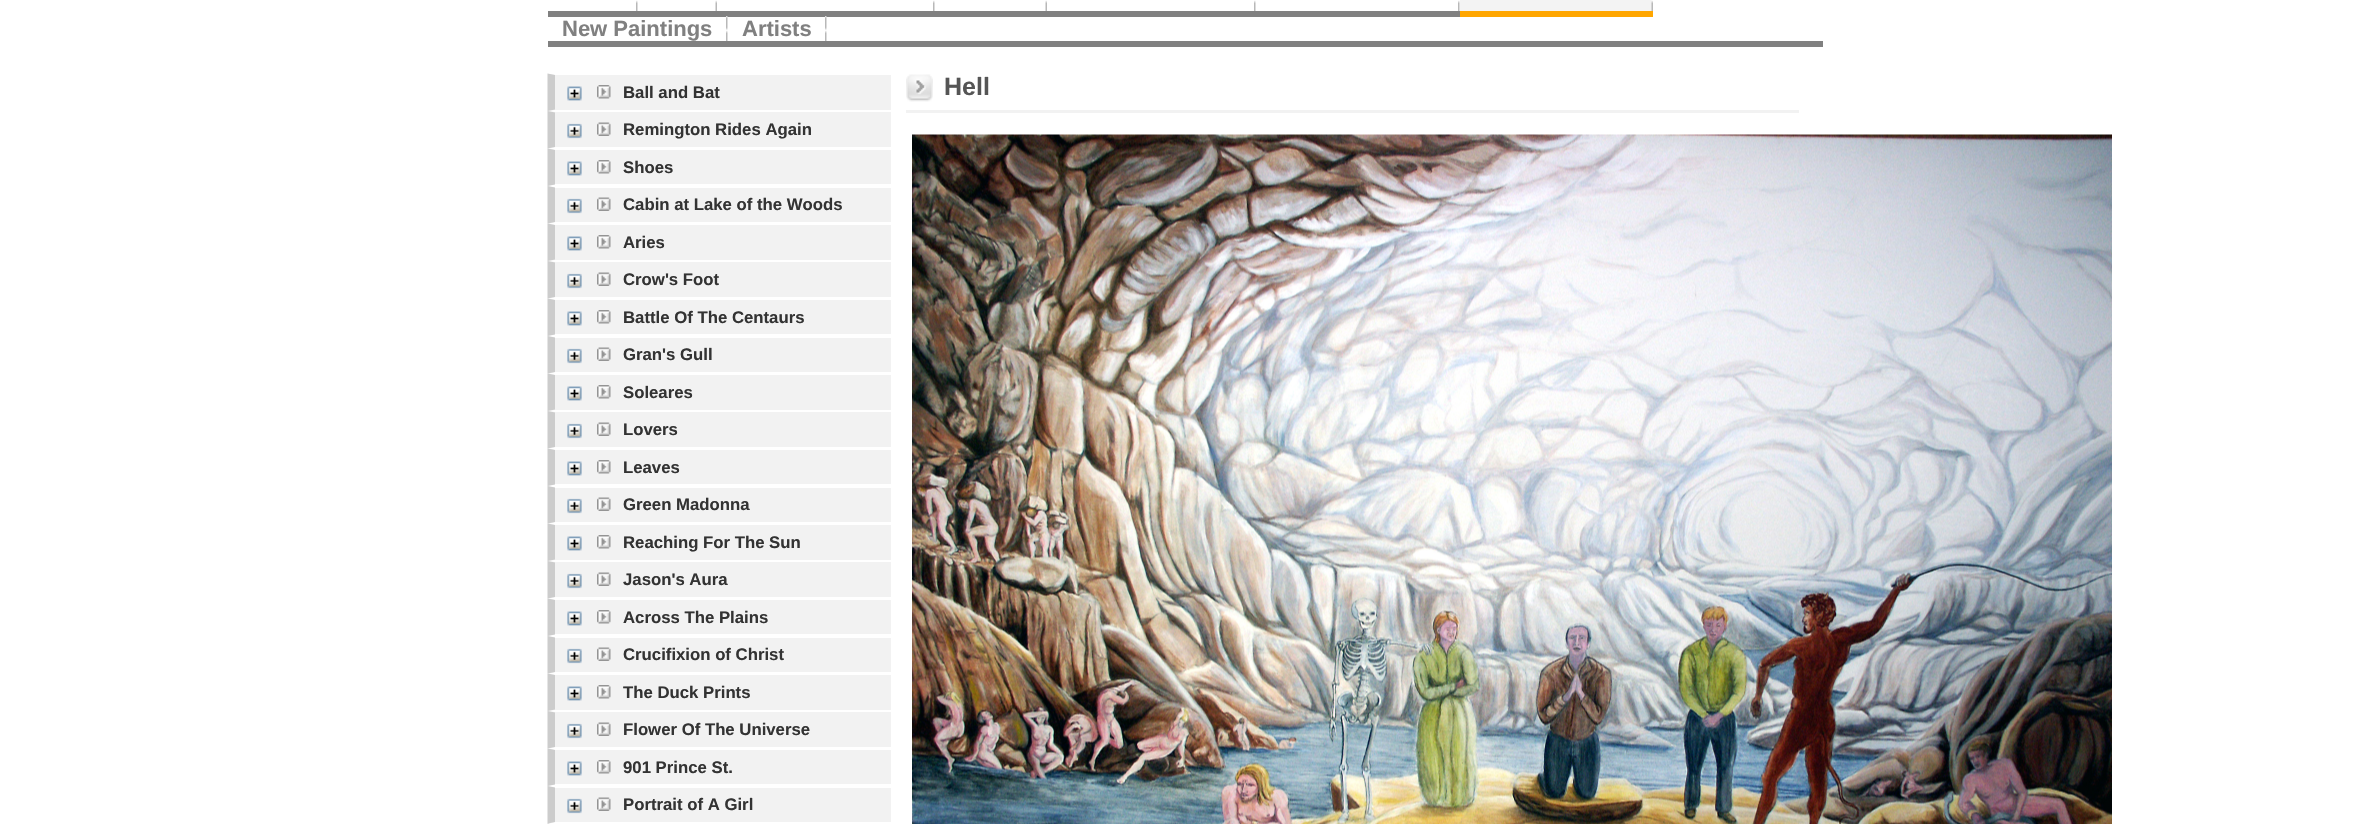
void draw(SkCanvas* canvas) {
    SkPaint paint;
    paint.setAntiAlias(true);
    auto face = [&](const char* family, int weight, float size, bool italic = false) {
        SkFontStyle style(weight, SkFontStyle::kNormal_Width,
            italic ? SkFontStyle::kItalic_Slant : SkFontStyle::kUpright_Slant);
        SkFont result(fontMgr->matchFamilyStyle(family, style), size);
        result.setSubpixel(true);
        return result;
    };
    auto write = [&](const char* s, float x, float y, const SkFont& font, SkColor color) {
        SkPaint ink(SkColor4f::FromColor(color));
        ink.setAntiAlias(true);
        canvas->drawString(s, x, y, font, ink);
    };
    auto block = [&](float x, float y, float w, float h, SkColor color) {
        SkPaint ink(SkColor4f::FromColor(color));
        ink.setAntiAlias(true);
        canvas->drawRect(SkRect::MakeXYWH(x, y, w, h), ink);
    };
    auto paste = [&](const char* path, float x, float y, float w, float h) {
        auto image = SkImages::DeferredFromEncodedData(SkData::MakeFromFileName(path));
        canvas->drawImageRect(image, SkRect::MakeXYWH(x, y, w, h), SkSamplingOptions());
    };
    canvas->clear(SK_ColorWHITE);
    block(827, 41, 996, 6, SkColorSetRGB(128, 128, 128));
    paste("pic1.png", 636, 0, 2, 11);
    block(548, 11, 912, 6, SkColorSetRGB(128, 128, 128));
    paste("pic2.png", 715, 0, 2, 11);
    paste("pic1.png", 933, 0, 2, 11);
    paste("pic2.png", 1045, 0, 2, 11);
    paste("pic1.png", 1254, 0, 2, 11);
    paste("pic1.png", 1458, 0, 2, 11);
    block(1460, 0, 192, 11, SkColorSetRGB(243, 243, 243));
    paste("pic3.png", 1651, 0, 2, 11);
    block(1460, 11, 193, 6, SkColorSetRGB(255, 166, 0));
    paste("pic4.png", 726, 16, 2, 25);
    block(548, 41, 279, 6, SkColorSetRGB(128, 128, 128));
    auto kFont1 = face("Liberation Sans", 700, 22);
    write("New Paintings", 562, 36, kFont1, SkColorSetRGB(128, 128, 128));
    paste("pic4.png", 825, 16, 2, 25);
    write("Artists", 742, 36, kFont1, SkColorSetRGB(128, 128, 128));
    block(548, 74, 343, 750, SkColorSetRGB(242, 242, 242));
    paint.setColor(SK_ColorWHITE);
    canvas->drawPath(SkPathBuilder().moveTo(548, 74).lineTo(891, 74).lineTo(891, 75).lineTo(555, 75).close().detach(), paint);
    canvas->drawPath(SkPathBuilder().moveTo(891, 111).lineTo(548, 111).lineTo(555, 110).lineTo(891, 110).close().detach(), paint);
    paint.setColor(SkColorSetRGB(204, 204, 204));
    canvas->drawPath(SkPathBuilder().moveTo(547.5f, 111).lineTo(547.5f, 73.5f).lineTo(555, 75).lineTo(555, 109.5f).close().detach(), paint);
    paste("pic5.png", 567, 86, 15, 15);
    paste("pic6.png", 597, 85, 14, 14);
    auto kFont2 = face("Liberation Sans", 700, 16.75f);
    write("Ball and Bat", 623, 98, kFont2, SkColorSetRGB(51, 51, 51));
    paint.setColor(SK_ColorWHITE);
    canvas->drawPath(SkPathBuilder().moveTo(548, 111).lineTo(891, 111).lineTo(891, 112).lineTo(555, 112).close().detach(), paint);
    canvas->drawPath(SkPathBuilder().moveTo(891, 148).lineTo(548, 148).lineTo(555, 147).lineTo(891, 147).close().detach(), paint);
    paint.setColor(SkColorSetRGB(204, 204, 204));
    canvas->drawPath(SkPathBuilder().moveTo(547.5f, 148.5f).lineTo(547.5f, 111).lineTo(555, 112.5f).lineTo(555, 147).close().detach(), paint);
    paste("pic7.png", 567, 123, 15, 16);
    paste("pic8.png", 597, 122, 14, 14);
    write("Remington Rides Again", 623, 135, kFont2, SkColorSetRGB(51, 51, 51));
    paint.setColor(SK_ColorWHITE);
    canvas->drawPath(SkPathBuilder().moveTo(548, 148).lineTo(891, 148).lineTo(891, 150).lineTo(555, 150).close().detach(), paint);
    canvas->drawPath(SkPathBuilder().moveTo(891, 186).lineTo(548, 186).lineTo(555, 184).lineTo(891, 184).close().detach(), paint);
    paint.setColor(SkColorSetRGB(204, 204, 204));
    canvas->drawPath(SkPathBuilder().moveTo(547.5f, 186).lineTo(547.5f, 148.5f).lineTo(555, 150).lineTo(555, 184.5f).close().detach(), paint);
    paste("pic5.png", 567, 161, 15, 15);
    paste("pic6.png", 597, 160, 14, 14);
    write("Shoes", 623, 173, kFont2, SkColorSetRGB(51, 51, 51));
    paint.setColor(SK_ColorWHITE);
    canvas->drawPath(SkPathBuilder().moveTo(548, 186).lineTo(891, 186).lineTo(891, 188).lineTo(555, 188).close().detach(), paint);
    canvas->drawPath(SkPathBuilder().moveTo(891, 224).lineTo(548, 224).lineTo(555, 222).lineTo(891, 222).close().detach(), paint);
    paint.setColor(SkColorSetRGB(204, 204, 204));
    canvas->drawPath(SkPathBuilder().moveTo(547.5f, 223.5f).lineTo(547.5f, 186).lineTo(555, 187.5f).lineTo(555, 222).close().detach(), paint);
    paste("pic7.png", 567, 198, 15, 16);
    paste("pic8.png", 597, 197, 14, 14);
    write("Cabin at Lake of the Woods", 623, 210, kFont2, SkColorSetRGB(51, 51, 51));
    paint.setColor(SK_ColorWHITE);
    canvas->drawPath(SkPathBuilder().moveTo(548, 224).lineTo(891, 224).lineTo(891, 225).lineTo(555, 225).close().detach(), paint);
    canvas->drawPath(SkPathBuilder().moveTo(891, 261).lineTo(548, 261).lineTo(555, 260).lineTo(891, 260).close().detach(), paint);
    paint.setColor(SkColorSetRGB(204, 204, 204));
    canvas->drawPath(SkPathBuilder().moveTo(547.5f, 261).lineTo(547.5f, 223.5f).lineTo(555, 225).lineTo(555, 259.5f).close().detach(), paint);
    paste("pic5.png", 567, 236, 15, 15);
    paste("pic6.png", 597, 235, 14, 14);
    write("Aries", 623, 248, kFont2, SkColorSetRGB(51, 51, 51));
    paint.setColor(SK_ColorWHITE);
    canvas->drawPath(SkPathBuilder().moveTo(548, 261).lineTo(891, 261).lineTo(891, 262).lineTo(555, 262).close().detach(), paint);
    canvas->drawPath(SkPathBuilder().moveTo(891, 298).lineTo(548, 298).lineTo(555, 297).lineTo(891, 297).close().detach(), paint);
    paint.setColor(SkColorSetRGB(204, 204, 204));
    canvas->drawPath(SkPathBuilder().moveTo(547.5f, 298.5f).lineTo(547.5f, 261).lineTo(555, 262.5f).lineTo(555, 297).close().detach(), paint);
    paste("pic7.png", 567, 273, 15, 16);
    paste("pic8.png", 597, 272, 14, 14);
    write("Crow's Foot", 623, 285, kFont2, SkColorSetRGB(51, 51, 51));
    paint.setColor(SK_ColorWHITE);
    canvas->drawPath(SkPathBuilder().moveTo(548, 298).lineTo(891, 298).lineTo(891, 300).lineTo(555, 300).close().detach(), paint);
    canvas->drawPath(SkPathBuilder().moveTo(891, 336).lineTo(548, 336).lineTo(555, 334).lineTo(891, 334).close().detach(), paint);
    paint.setColor(SkColorSetRGB(204, 204, 204));
    canvas->drawPath(SkPathBuilder().moveTo(547.5f, 336).lineTo(547.5f, 298.5f).lineTo(555, 300).lineTo(555, 334.5f).close().detach(), paint);
    paste("pic5.png", 567, 311, 15, 15);
    paste("pic6.png", 597, 310, 14, 14);
    write("Battle Of The Centaurs", 623, 323, kFont2, SkColorSetRGB(51, 51, 51));
    paint.setColor(SK_ColorWHITE);
    canvas->drawPath(SkPathBuilder().moveTo(548, 336).lineTo(891, 336).lineTo(891, 338).lineTo(555, 338).close().detach(), paint);
    canvas->drawPath(SkPathBuilder().moveTo(891, 374).lineTo(548, 374).lineTo(555, 372).lineTo(891, 372).close().detach(), paint);
    paint.setColor(SkColorSetRGB(204, 204, 204));
    canvas->drawPath(SkPathBuilder().moveTo(547.5f, 373.5f).lineTo(547.5f, 336).lineTo(555, 337.5f).lineTo(555, 372).close().detach(), paint);
    paste("pic7.png", 567, 348, 15, 16);
    paste("pic8.png", 597, 347, 14, 14);
    write("Gran's Gull", 623, 360, kFont2, SkColorSetRGB(51, 51, 51));
    paint.setColor(SK_ColorWHITE);
    canvas->drawPath(SkPathBuilder().moveTo(548, 374).lineTo(891, 374).lineTo(891, 375).lineTo(555, 375).close().detach(), paint);
    canvas->drawPath(SkPathBuilder().moveTo(891, 411).lineTo(548, 411).lineTo(555, 410).lineTo(891, 410).close().detach(), paint);
    paint.setColor(SkColorSetRGB(204, 204, 204));
    canvas->drawPath(SkPathBuilder().moveTo(547.5f, 411).lineTo(547.5f, 373.5f).lineTo(555, 375).lineTo(555, 409.5f).close().detach(), paint);
    paste("pic5.png", 567, 386, 15, 15);
    paste("pic6.png", 597, 385, 14, 14);
    write("Soleares", 623, 398, kFont2, SkColorSetRGB(51, 51, 51));
    paint.setColor(SK_ColorWHITE);
    canvas->drawPath(SkPathBuilder().moveTo(548, 411).lineTo(891, 411).lineTo(891, 412).lineTo(555, 412).close().detach(), paint);
    canvas->drawPath(SkPathBuilder().moveTo(891, 448).lineTo(548, 448).lineTo(555, 447).lineTo(891, 447).close().detach(), paint);
    paint.setColor(SkColorSetRGB(204, 204, 204));
    canvas->drawPath(SkPathBuilder().moveTo(547.5f, 448.5f).lineTo(547.5f, 411).lineTo(555, 412.5f).lineTo(555, 447).close().detach(), paint);
    paste("pic7.png", 567, 423, 15, 16);
    paste("pic8.png", 597, 422, 14, 14);
    write("Lovers", 623, 435, kFont2, SkColorSetRGB(51, 51, 51));
    paint.setColor(SK_ColorWHITE);
    canvas->drawPath(SkPathBuilder().moveTo(548, 448).lineTo(891, 448).lineTo(891, 450).lineTo(555, 450).close().detach(), paint);
    canvas->drawPath(SkPathBuilder().moveTo(891, 486).lineTo(548, 486).lineTo(555, 484).lineTo(891, 484).close().detach(), paint);
    paint.setColor(SkColorSetRGB(204, 204, 204));
    canvas->drawPath(SkPathBuilder().moveTo(547.5f, 486).lineTo(547.5f, 448.5f).lineTo(555, 450).lineTo(555, 484.5f).close().detach(), paint);
    paste("pic5.png", 567, 461, 15, 15);
    paste("pic6.png", 597, 460, 14, 14);
    write("Leaves", 623, 473, kFont2, SkColorSetRGB(51, 51, 51));
    paint.setColor(SK_ColorWHITE);
    canvas->drawPath(SkPathBuilder().moveTo(548, 486).lineTo(891, 486).lineTo(891, 488).lineTo(555, 488).close().detach(), paint);
    canvas->drawPath(SkPathBuilder().moveTo(891, 524).lineTo(548, 524).lineTo(555, 522).lineTo(891, 522).close().detach(), paint);
    paint.setColor(SkColorSetRGB(204, 204, 204));
    canvas->drawPath(SkPathBuilder().moveTo(547.5f, 523.5f).lineTo(547.5f, 486).lineTo(555, 487.5f).lineTo(555, 522).close().detach(), paint);
    paste("pic7.png", 567, 498, 15, 16);
    paste("pic8.png", 597, 497, 14, 14);
    write("Green Madonna", 623, 510, kFont2, SkColorSetRGB(51, 51, 51));
    paint.setColor(SK_ColorWHITE);
    canvas->drawPath(SkPathBuilder().moveTo(548, 524).lineTo(891, 524).lineTo(891, 525).lineTo(555, 525).close().detach(), paint);
    canvas->drawPath(SkPathBuilder().moveTo(891, 561).lineTo(548, 561).lineTo(555, 560).lineTo(891, 560).close().detach(), paint);
    paint.setColor(SkColorSetRGB(204, 204, 204));
    canvas->drawPath(SkPathBuilder().moveTo(547.5f, 561).lineTo(547.5f, 523.5f).lineTo(555, 525).lineTo(555, 559.5f).close().detach(), paint);
    paste("pic5.png", 567, 536, 15, 15);
    paste("pic6.png", 597, 535, 14, 14);
    write("Reaching For The Sun", 623, 548, kFont2, SkColorSetRGB(51, 51, 51));
    paint.setColor(SK_ColorWHITE);
    canvas->drawPath(SkPathBuilder().moveTo(548, 561).lineTo(891, 561).lineTo(891, 562).lineTo(555, 562).close().detach(), paint);
    canvas->drawPath(SkPathBuilder().moveTo(891, 598).lineTo(548, 598).lineTo(555, 597).lineTo(891, 597).close().detach(), paint);
    paint.setColor(SkColorSetRGB(204, 204, 204));
    canvas->drawPath(SkPathBuilder().moveTo(547.5f, 598.5f).lineTo(547.5f, 561).lineTo(555, 562.5f).lineTo(555, 597).close().detach(), paint);
    paste("pic7.png", 567, 573, 15, 16);
    paste("pic8.png", 597, 572, 14, 14);
    write("Jason's Aura", 623, 585, kFont2, SkColorSetRGB(51, 51, 51));
    paint.setColor(SK_ColorWHITE);
    canvas->drawPath(SkPathBuilder().moveTo(548, 598).lineTo(891, 598).lineTo(891, 600).lineTo(555, 600).close().detach(), paint);
    canvas->drawPath(SkPathBuilder().moveTo(891, 636).lineTo(548, 636).lineTo(555, 634).lineTo(891, 634).close().detach(), paint);
    paint.setColor(SkColorSetRGB(204, 204, 204));
    canvas->drawPath(SkPathBuilder().moveTo(547.5f, 636).lineTo(547.5f, 598.5f).lineTo(555, 600).lineTo(555, 634.5f).close().detach(), paint);
    paste("pic5.png", 567, 611, 15, 15);
    paste("pic6.png", 597, 610, 14, 14);
    write("Across The Plains", 623, 623, kFont2, SkColorSetRGB(51, 51, 51));
    paint.setColor(SK_ColorWHITE);
    canvas->drawPath(SkPathBuilder().moveTo(548, 636).lineTo(891, 636).lineTo(891, 638).lineTo(555, 638).close().detach(), paint);
    canvas->drawPath(SkPathBuilder().moveTo(891, 674).lineTo(548, 674).lineTo(555, 672).lineTo(891, 672).close().detach(), paint);
    paint.setColor(SkColorSetRGB(204, 204, 204));
    canvas->drawPath(SkPathBuilder().moveTo(547.5f, 673.5f).lineTo(547.5f, 636).lineTo(555, 637.5f).lineTo(555, 672).close().detach(), paint);
    paste("pic7.png", 567, 648, 15, 16);
    paste("pic8.png", 597, 647, 14, 14);
    write("Crucifixion of Christ", 623, 660, kFont2, SkColorSetRGB(51, 51, 51));
    paint.setColor(SK_ColorWHITE);
    canvas->drawPath(SkPathBuilder().moveTo(548, 674).lineTo(891, 674).lineTo(891, 675).lineTo(555, 675).close().detach(), paint);
    canvas->drawPath(SkPathBuilder().moveTo(891, 711).lineTo(548, 711).lineTo(555, 710).lineTo(891, 710).close().detach(), paint);
    paint.setColor(SkColorSetRGB(204, 204, 204));
    canvas->drawPath(SkPathBuilder().moveTo(547.5f, 711).lineTo(547.5f, 673.5f).lineTo(555, 675).lineTo(555, 709.5f).close().detach(), paint);
    paste("pic5.png", 567, 686, 15, 15);
    paste("pic6.png", 597, 685, 14, 14);
    write("The Duck Prints", 623, 698, kFont2, SkColorSetRGB(51, 51, 51));
    paint.setColor(SK_ColorWHITE);
    canvas->drawPath(SkPathBuilder().moveTo(548, 711).lineTo(891, 711).lineTo(891, 712).lineTo(555, 712).close().detach(), paint);
    canvas->drawPath(SkPathBuilder().moveTo(891, 748).lineTo(548, 748).lineTo(555, 747).lineTo(891, 747).close().detach(), paint);
    paint.setColor(SkColorSetRGB(204, 204, 204));
    canvas->drawPath(SkPathBuilder().moveTo(547.5f, 748.5f).lineTo(547.5f, 711).lineTo(555, 712.5f).lineTo(555, 747).close().detach(), paint);
    paste("pic7.png", 567, 723, 15, 16);
    paste("pic8.png", 597, 722, 14, 14);
    write("Flower Of The Universe", 623, 735, kFont2, SkColorSetRGB(51, 51, 51));
    paint.setColor(SK_ColorWHITE);
    canvas->drawPath(SkPathBuilder().moveTo(548, 748).lineTo(891, 748).lineTo(891, 750).lineTo(555, 750).close().detach(), paint);
    canvas->drawPath(SkPathBuilder().moveTo(891, 786).lineTo(548, 786).lineTo(555, 784).lineTo(891, 784).close().detach(), paint);
    paint.setColor(SkColorSetRGB(204, 204, 204));
    canvas->drawPath(SkPathBuilder().moveTo(547.5f, 786).lineTo(547.5f, 748.5f).lineTo(555, 750).lineTo(555, 784.5f).close().detach(), paint);
    paste("pic5.png", 567, 761, 15, 15);
    paste("pic6.png", 597, 760, 14, 14);
    write("901 Prince St.", 623, 773, kFont2, SkColorSetRGB(51, 51, 51));
    paint.setColor(SK_ColorWHITE);
    canvas->drawPath(SkPathBuilder().moveTo(548, 786).lineTo(891, 786).lineTo(891, 788).lineTo(555, 788).close().detach(), paint);
    canvas->drawPath(SkPathBuilder().moveTo(891, 824).lineTo(548, 824).lineTo(555, 822).lineTo(891, 822).close().detach(), paint);
    paint.setColor(SkColorSetRGB(204, 204, 204));
    canvas->drawPath(SkPathBuilder().moveTo(547.5f, 823.5f).lineTo(547.5f, 786).lineTo(555, 787.5f).lineTo(555, 822).close().detach(), paint);
    paste("pic7.png", 567, 798, 15, 16);
    paste("pic8.png", 597, 797, 14, 14);
    write("Portrait of A Girl", 623, 810, kFont2, SkColorSetRGB(51, 51, 51));
    canvas->drawPath(SkPathBuilder().moveTo(547.5f, 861).lineTo(547.5f, 823.5f).lineTo(555, 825).lineTo(555, 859.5f).close().detach(), paint);
    paste("pic9.png", 906, 74, 27, 28);
    block(906, 110, 893, 3, SkColorSetRGB(242, 242, 242));
    auto kFont3 = face("Liberation Sans", 700, 25);
    write("Hell", 944, 95, kFont3, SkColorSetRGB(85, 85, 85));
    paste("pic10.png", 912, 134, 1200, 690);
}
